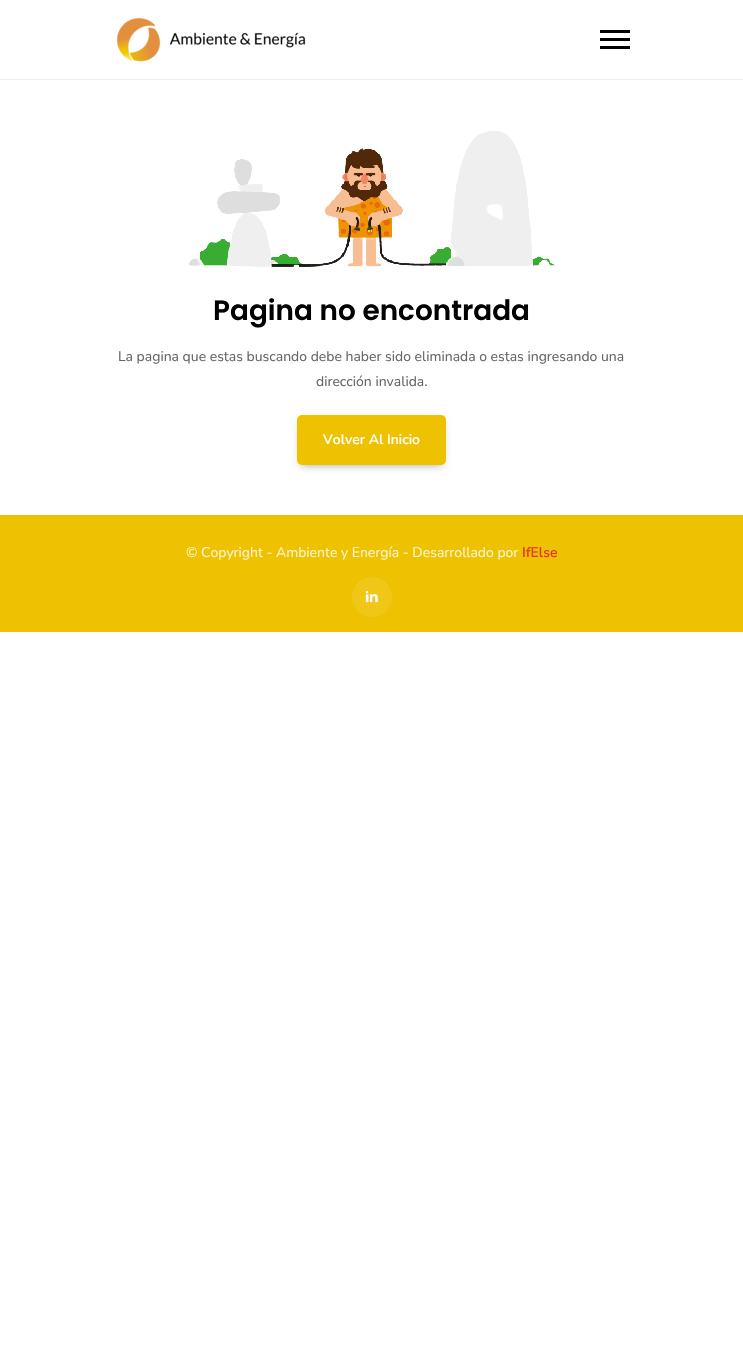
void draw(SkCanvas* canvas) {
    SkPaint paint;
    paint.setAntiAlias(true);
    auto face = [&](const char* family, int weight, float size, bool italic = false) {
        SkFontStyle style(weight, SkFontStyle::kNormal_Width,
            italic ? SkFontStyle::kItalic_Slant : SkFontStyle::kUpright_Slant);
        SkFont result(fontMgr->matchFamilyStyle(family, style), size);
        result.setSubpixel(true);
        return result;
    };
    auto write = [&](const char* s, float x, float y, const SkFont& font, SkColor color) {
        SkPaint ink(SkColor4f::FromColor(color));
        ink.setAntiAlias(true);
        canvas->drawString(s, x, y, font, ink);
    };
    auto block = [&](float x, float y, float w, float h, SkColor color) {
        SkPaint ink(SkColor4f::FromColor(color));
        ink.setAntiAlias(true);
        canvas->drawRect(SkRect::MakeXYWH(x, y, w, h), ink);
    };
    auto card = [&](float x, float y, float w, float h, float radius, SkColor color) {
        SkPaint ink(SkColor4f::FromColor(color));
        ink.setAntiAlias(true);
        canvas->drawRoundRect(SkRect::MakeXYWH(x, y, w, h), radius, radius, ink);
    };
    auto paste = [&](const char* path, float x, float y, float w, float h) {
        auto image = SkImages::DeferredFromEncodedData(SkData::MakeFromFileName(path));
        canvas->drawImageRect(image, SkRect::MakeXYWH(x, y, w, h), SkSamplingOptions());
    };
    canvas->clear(SK_ColorWHITE);
    paste("pic1.png", 116, 17, 190, 45);
    block(600, 30, 30, 3, SK_ColorBLACK);
    block(600, 38, 30, 3, SK_ColorBLACK);
    block(600, 46, 30, 3, SK_ColorBLACK);
    block(0, 79, 743, 1, SkColorSetRGB(237, 237, 237));
    paste("pic2.png", 189, 131, 366, 136);
    auto kFont1 = face("Poppins", 600, 27.9f);
    write("Pagina no encontrada", 213, 320, kFont1, SK_ColorBLACK);
    auto kFont2 = face("Nunito Sans", 400, 14);
    write("La pagina que estas buscando debe haber sido eliminada o estas ingresando una", 118, 361, kFont2, SkColorSetRGB(102, 102, 102));
    write("dirección invalida.", 316, 386, kFont2, SkColorSetRGB(102, 102, 102));
    paint.setColor(SkColorSetARGB(89, 0, 0, 0));
    paint.setMaskFilter(SkMaskFilter::MakeBlur(kNormal_SkBlurStyle, 4.5f));
    canvas->drawRoundRect(SkRect::MakeXYWH(301, 423, 141, 42), 1, 1, paint);
    paint.setMaskFilter(nullptr);
    card(297, 415, 149, 50, 5, SkColorSetRGB(238, 194, 0));
    auto kFont3 = face("Nunito Sans", 600, 14);
    write("Volver Al Inicio", 323, 444, kFont3, SK_ColorWHITE);
    block(0, 515, 743, 117, SkColorSetRGB(238, 194, 0));
    write("© Copyright - Ambiente y Energía - Desarrollado por", 186, 557, kFont2, SkColorSetRGB(252, 243, 204));
    write("IfElse", 522, 557, kFont3, SkColorSetRGB(236, 51, 35));
    paint.setColor(SkColorSetRGB(240, 199, 23));
    canvas->drawCircle(372, 597, 20, paint);
    paste("pic3.png", 365, 590, 13, 13);
}
